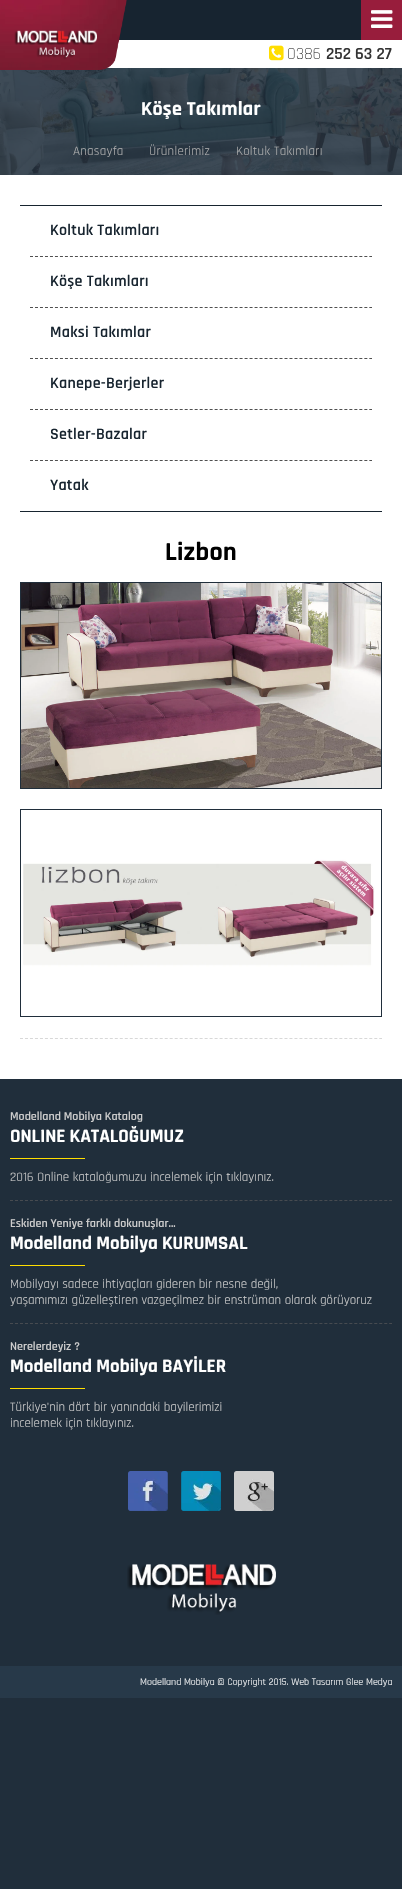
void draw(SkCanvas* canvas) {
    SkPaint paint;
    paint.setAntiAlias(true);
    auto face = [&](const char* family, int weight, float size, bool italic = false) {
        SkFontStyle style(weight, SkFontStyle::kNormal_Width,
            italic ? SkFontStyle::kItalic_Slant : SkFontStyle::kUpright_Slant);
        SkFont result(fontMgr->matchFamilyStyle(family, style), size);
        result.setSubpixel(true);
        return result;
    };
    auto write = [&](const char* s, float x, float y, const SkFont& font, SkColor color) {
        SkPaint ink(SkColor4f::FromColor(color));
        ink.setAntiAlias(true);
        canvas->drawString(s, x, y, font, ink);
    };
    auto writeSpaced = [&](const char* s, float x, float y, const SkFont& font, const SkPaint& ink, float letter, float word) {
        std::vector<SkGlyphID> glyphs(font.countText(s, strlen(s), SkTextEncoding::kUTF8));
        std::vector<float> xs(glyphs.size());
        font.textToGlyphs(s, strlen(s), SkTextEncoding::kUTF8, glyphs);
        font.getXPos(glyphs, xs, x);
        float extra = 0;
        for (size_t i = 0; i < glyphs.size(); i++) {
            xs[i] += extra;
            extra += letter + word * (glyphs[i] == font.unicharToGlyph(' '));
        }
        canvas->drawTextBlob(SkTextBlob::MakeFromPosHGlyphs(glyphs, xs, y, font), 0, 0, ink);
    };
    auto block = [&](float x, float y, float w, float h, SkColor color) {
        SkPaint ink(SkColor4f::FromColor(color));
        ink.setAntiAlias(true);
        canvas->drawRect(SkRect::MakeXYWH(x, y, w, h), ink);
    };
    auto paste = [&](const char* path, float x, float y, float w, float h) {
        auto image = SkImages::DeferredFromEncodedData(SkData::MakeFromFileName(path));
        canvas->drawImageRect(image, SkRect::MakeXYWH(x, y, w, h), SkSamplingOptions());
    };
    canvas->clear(SkColorSetRGB(32, 46, 59));
    block(119, 0, 242, 40, SkColorSetRGB(23, 36, 48));
    block(106, 40, 296, 28, SK_ColorWHITE);
    block(0, 68, 402, 107, SkColorSetRGB(34, 49, 63));
    paste("pic5.png", 0, 68, 402, 107);
    paste("pic1.png", 0, 0, 127, 70);
    paste("pic2.png", 14, 30, 83, 30);
    block(361, 0, 41, 40, SkColorSetRGB(152, 29, 60));
    paste("pic3.png", 371, 10, 22, 18);
    paste("pic4.png", 269, 45, 15, 16);
    auto kFont1 = face("Rajdhani", 300, 17);
    write("0386", 287, 59, kFont1, SkColorSetRGB(51, 51, 51));
    auto kFont2 = face("Rajdhani", 600, 17);
    write("252 63 27", 326, 59, kFont2, SkColorSetRGB(51, 51, 51));
    block(0, 175, 402, 904, SK_ColorWHITE);
    auto kFont3 = face("Rajdhani", 700, 20);
    paint.setColor(SK_ColorWHITE);
    writeSpaced("Köşe Takımlar", 141, 115, kFont3, paint, 0.25f, 0);
    auto kFont4 = face("Rajdhani", 400, 13);
    paint.setColor(SkColorSetRGB(175, 175, 175));
    writeSpaced("Anasayfa", 73, 155, kFont4, paint, 0.25f, 0);
    writeSpaced("Ürünlerimiz", 149, 155, kFont4, paint, 0.25f, 0);
    writeSpaced("Koltuk Takımları", 236, 155, kFont4, paint, 0.25f, 0);
    block(20, 205, 362, 1, SkColorSetRGB(23, 36, 47));
    block(20, 511, 362, 1, SkColorSetRGB(23, 36, 47));
    paint.setStyle(SkPaint::kStroke_Style);
    paint.setStrokeWidth(1);
    paint.setColor(SkColorSetRGB(80, 80, 80));
    paint.setPathEffect(SkDashPathEffect::Make({{3, 1.99f}}, 0));
    canvas->drawPath(SkPathBuilder().moveTo(30, 256.5f).lineTo(372, 256.5f).detach(), paint);
    paint.setPathEffect(nullptr);
    auto kFont5 = face("Rajdhani", 600, 16);
    paint.setStyle(SkPaint::kFill_Style);
    paint.setColor(SkColorSetRGB(23, 36, 47));
    writeSpaced("Koltuk Takımları", 50, 235, kFont5, paint, 0.25f, 0);
    paint.setStyle(SkPaint::kStroke_Style);
    paint.setColor(SkColorSetRGB(80, 80, 80));
    paint.setPathEffect(SkDashPathEffect::Make({{3, 1.99f}}, 0));
    canvas->drawPath(SkPathBuilder().moveTo(30, 307.5f).lineTo(372, 307.5f).detach(), paint);
    paint.setPathEffect(nullptr);
    paint.setStyle(SkPaint::kFill_Style);
    paint.setColor(SkColorSetRGB(23, 36, 47));
    writeSpaced("Köşe Takımları", 50, 286, kFont5, paint, 0.25f, 0);
    paint.setStyle(SkPaint::kStroke_Style);
    paint.setColor(SkColorSetRGB(80, 80, 80));
    paint.setPathEffect(SkDashPathEffect::Make({{3, 1.99f}}, 0));
    canvas->drawPath(SkPathBuilder().moveTo(30, 358.5f).lineTo(372, 358.5f).detach(), paint);
    paint.setPathEffect(nullptr);
    paint.setStyle(SkPaint::kFill_Style);
    paint.setColor(SkColorSetRGB(23, 36, 47));
    writeSpaced("Maksi Takımlar", 50, 337, kFont5, paint, 0.25f, 0);
    paint.setStyle(SkPaint::kStroke_Style);
    paint.setColor(SkColorSetRGB(80, 80, 80));
    paint.setPathEffect(SkDashPathEffect::Make({{3, 1.99f}}, 0));
    canvas->drawPath(SkPathBuilder().moveTo(30, 409.5f).lineTo(372, 409.5f).detach(), paint);
    paint.setPathEffect(nullptr);
    paint.setStyle(SkPaint::kFill_Style);
    paint.setColor(SkColorSetRGB(23, 36, 47));
    writeSpaced("Kanepe-Berjerler", 50, 388, kFont5, paint, 0.25f, 0);
    paint.setStyle(SkPaint::kStroke_Style);
    paint.setColor(SkColorSetRGB(80, 80, 80));
    paint.setPathEffect(SkDashPathEffect::Make({{3, 1.99f}}, 0));
    canvas->drawPath(SkPathBuilder().moveTo(30, 460.5f).lineTo(372, 460.5f).detach(), paint);
    paint.setPathEffect(nullptr);
    paint.setStyle(SkPaint::kFill_Style);
    paint.setColor(SkColorSetRGB(23, 36, 47));
    writeSpaced("Setler-Bazalar", 50, 439, kFont5, paint, 0.25f, 0);
    writeSpaced("Yatak", 50, 490, kFont5, paint, 0.25f, 0);
    auto kFont6 = face("Rajdhani", 700, 26);
    paint.setColor(SK_ColorBLACK);
    writeSpaced("Lizbon", 165, 560, kFont6, paint, 0.25f, 0);
    block(20, 582, 362, 207, SkColorSetRGB(32, 46, 59));
    paste("pic6.png", 21, 583, 360, 205);
    block(20, 809, 362, 208, SkColorSetRGB(32, 46, 59));
    paste("pic7.png", 21, 810, 360, 206);
    paint.setStyle(SkPaint::kStroke_Style);
    paint.setColor(SkColorSetRGB(216, 216, 216));
    paint.setPathEffect(SkDashPathEffect::Make({{3, 1.99f}}, 0));
    canvas->drawPath(SkPathBuilder().moveTo(20, 1038.5f).lineTo(382, 1038.5f).detach(), paint);
    paint.setPathEffect(nullptr);
    paint.setColor(SkColorSetRGB(71, 75, 80));
    paint.setPathEffect(SkDashPathEffect::Make({{3, 1.99f}}, 0));
    canvas->drawPath(SkPathBuilder().moveTo(10, 1200.5f).lineTo(392, 1200.5f).detach(), paint);
    paint.setPathEffect(nullptr);
    auto kFont7 = face("Rajdhani", 600, 12);
    write("Modelland Mobilya Katalog", 10, 1120, kFont7, SkColorSetRGB(204, 204, 204));
    auto kFont8 = face("Rajdhani", 700, 19);
    write("ONLINE KATALOĞUMUZ", 10, 1142, kFont8, SK_ColorWHITE);
    block(10, 1158, 75, 1, SkColorSetRGB(255, 221, 0));
    write("2016 Online kataloğumuzu incelemek için tıklayınız.", 10, 1181, kFont4, SkColorSetRGB(204, 204, 204));
    paint.setPathEffect(SkDashPathEffect::Make({{3, 1.99f}}, 0));
    canvas->drawPath(SkPathBuilder().moveTo(10, 1323.5f).lineTo(392, 1323.5f).detach(), paint);
    paint.setPathEffect(nullptr);
    write("Eskiden Yeniye farklı dokunuşlar...", 10, 1227, kFont7, SkColorSetRGB(204, 204, 204));
    write("Modelland Mobilya KURUMSAL", 10, 1249, kFont8, SK_ColorWHITE);
    block(10, 1265, 75, 1, SkColorSetRGB(255, 221, 0));
    write("Mobilyayı sadece ihtiyaçları gideren bir nesne değil,", 10, 1288, kFont4, SkColorSetRGB(204, 204, 204));
    write("yaşamımızı güzelleştiren vazgeçilmez bir enstrüman olarak görüyoruz", 10, 1304, kFont4, SkColorSetRGB(204, 204, 204));
    write("Nerelerdeyiz ?", 10, 1350, kFont7, SkColorSetRGB(204, 204, 204));
    write("Modelland Mobilya BAYİLER", 10, 1372, kFont8, SK_ColorWHITE);
    block(10, 1388, 75, 1, SkColorSetRGB(255, 221, 0));
    write("Türkiye'nin dört bir yanındaki bayilerimizi", 10, 1411, kFont4, SkColorSetRGB(204, 204, 204));
    write("incelemek için tıklayınız.", 10, 1427, kFont4, SkColorSetRGB(204, 204, 204));
    paste("pic8.png", 128, 1471, 40, 40);
    paste("pic9.png", 181, 1471, 40, 40);
    paste("pic10.png", 234, 1471, 40, 40);
    paste("pic11.png", 127, 1564, 149, 51);
    block(0, 1666, 402, 32, SkColorSetRGB(39, 57, 73));
    auto kFont9 = face("Rajdhani", 400, 10);
    write("Modelland Mobilya © Copyright 2015. Web Tasarım Glee Medya", 140, 1685, kFont9, SK_ColorWHITE);
}
